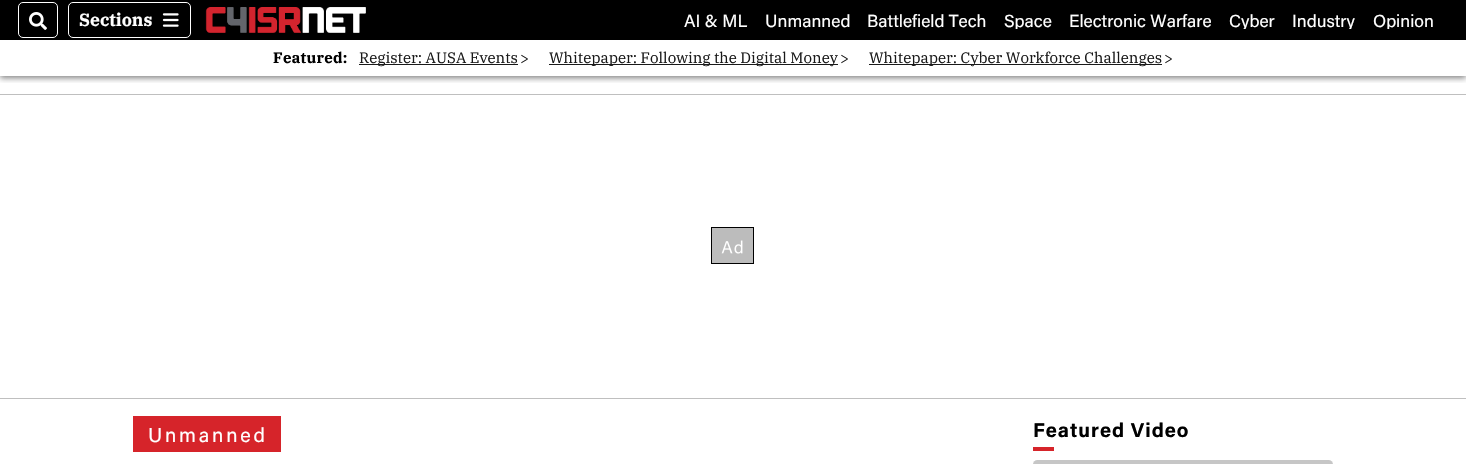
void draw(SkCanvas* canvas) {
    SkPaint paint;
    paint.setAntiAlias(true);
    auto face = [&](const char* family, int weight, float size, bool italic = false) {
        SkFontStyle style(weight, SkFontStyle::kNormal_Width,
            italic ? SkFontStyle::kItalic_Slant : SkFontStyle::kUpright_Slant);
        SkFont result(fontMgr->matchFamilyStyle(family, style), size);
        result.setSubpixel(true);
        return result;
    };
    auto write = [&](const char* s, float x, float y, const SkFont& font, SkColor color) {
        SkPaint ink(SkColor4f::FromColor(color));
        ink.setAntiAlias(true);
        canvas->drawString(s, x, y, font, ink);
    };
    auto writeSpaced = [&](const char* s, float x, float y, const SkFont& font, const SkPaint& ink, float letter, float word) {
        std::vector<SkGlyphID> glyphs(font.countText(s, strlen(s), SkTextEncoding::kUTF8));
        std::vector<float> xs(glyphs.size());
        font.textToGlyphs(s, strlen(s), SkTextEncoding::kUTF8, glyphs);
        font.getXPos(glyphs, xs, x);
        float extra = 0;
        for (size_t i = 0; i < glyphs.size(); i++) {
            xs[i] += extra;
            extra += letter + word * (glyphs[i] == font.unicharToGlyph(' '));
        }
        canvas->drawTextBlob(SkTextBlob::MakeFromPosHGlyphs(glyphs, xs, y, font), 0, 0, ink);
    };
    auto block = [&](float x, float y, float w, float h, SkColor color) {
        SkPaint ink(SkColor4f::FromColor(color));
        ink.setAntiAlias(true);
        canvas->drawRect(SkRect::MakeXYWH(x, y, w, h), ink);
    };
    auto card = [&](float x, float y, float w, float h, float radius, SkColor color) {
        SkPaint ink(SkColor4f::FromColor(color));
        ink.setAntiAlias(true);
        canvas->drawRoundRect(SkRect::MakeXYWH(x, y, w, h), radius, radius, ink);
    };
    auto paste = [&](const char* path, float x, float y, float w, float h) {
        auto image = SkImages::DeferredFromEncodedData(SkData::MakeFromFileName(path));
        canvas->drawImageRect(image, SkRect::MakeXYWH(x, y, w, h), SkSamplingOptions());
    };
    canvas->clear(SK_ColorWHITE);
    canvas->save();
    canvas->clipRect(SkRect::MakeXYWH(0, 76, 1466, 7));
    paint.setColor(SkColorSetARGB(128, 0, 0, 0));
    paint.setMaskFilter(SkMaskFilter::MakeBlur(kNormal_SkBlurStyle, 3));
    canvas->drawRect(SkRect::MakeXYWH(0, 2, 1466, 76), paint);
    paint.setMaskFilter(nullptr);
    canvas->restore();
    block(0, 0, 1466, 40, SK_ColorBLACK);
    paint.setStyle(SkPaint::kStroke_Style);
    paint.setStrokeWidth(1);
    paint.setColor(SK_ColorWHITE);
    canvas->drawRoundRect(SkRect::MakeXYWH(18.5f, 2.5f, 39, 35), 4.5f, 4.5f, paint);
    paste("pic1.png", 29, 12, 18, 18);
    canvas->drawRoundRect(SkRect::MakeXYWH(68.5f, 2.5f, 122, 35), 4.5f, 4.5f, paint);
    auto kFont1 = face("IBM Plex Serif", 700, 17.5f);
    write("Sections", 79, 26, kFont1, SK_ColorWHITE);
    paste("pic2.png", 162, 13, 17, 14);
    paste("pic3.png", 205, 7, 161, 26);
    auto kFont2 = face("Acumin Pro", 400, 17.5f);
    write("AI & ML", 684, 27, kFont2, SK_ColorWHITE);
    write("Unmanned", 765, 27, kFont2, SK_ColorWHITE);
    write("Battlefield Tech", 867, 27, kFont2, SK_ColorWHITE);
    canvas->save();
    canvas->clipRect(SkRect::MakeXYWH(684, 11, 749, 18));
    write("Space", 1004, 27, kFont2, SK_ColorWHITE);
    canvas->restore();
    write("Electronic Warfare", 1069, 27, kFont2, SK_ColorWHITE);
    canvas->save();
    canvas->clipRect(SkRect::MakeXYWH(684, 11, 749, 18));
    write("Cyber", 1229, 27, kFont2, SK_ColorWHITE);
    write("Industry", 1292, 27, kFont2, SK_ColorWHITE);
    write("Opinion", 1373, 27, kFont2, SK_ColorWHITE);
    canvas->restore();
    auto kFont3 = face("IBM Plex Serif", 700, 15.1f);
    paint.setStyle(SkPaint::kFill_Style);
    paint.setColor(SK_ColorBLACK);
    writeSpaced("Featured:", 273, 63, kFont3, paint, 0.25f, 0);
    block(359, 64, 159, 1, SkColorSetRGB(25, 25, 25));
    auto kFont4 = face("IBM Plex Serif", 400, 15.1f);
    write("Register: AUSA Events", 359, 63, kFont4, SkColorSetRGB(25, 25, 25));
    paint.setColor(SkColorSetRGB(25, 25, 25));
    writeSpaced(">", 520, 63, kFont4, paint, -4, 0);
    block(549, 64, 289, 1, SkColorSetRGB(25, 25, 25));
    write("Whitepaper: Following the Digital Money", 549, 63, kFont4, SkColorSetRGB(25, 25, 25));
    writeSpaced(">", 840, 63, kFont4, paint, -4, 0);
    block(869, 64, 293, 1, SkColorSetRGB(25, 25, 25));
    write("Whitepaper: Cyber Workforce Challenges", 869, 63, kFont4, SkColorSetRGB(25, 25, 25));
    writeSpaced(">", 1164, 63, kFont4, paint, -4, 0);
    block(0, 94, 1466, 1, SkColorSetRGB(191, 191, 191));
    block(712, 228, 41, 35, SkColorSetRGB(188, 188, 188));
    paste("pic4.png", 721, 240, 22, 14);
    paint.setStyle(SkPaint::kStroke_Style);
    paint.setColor(SK_ColorBLACK);
    canvas->drawRect(SkRect::MakeXYWH(711.5f, 227.5f, 42, 36), paint);
    block(0, 398, 1466, 1, SkColorSetRGB(191, 191, 191));
    block(133, 416, 148, 36, SkColorSetRGB(214, 36, 42));
    auto kFont5 = face("Acumin Pro", 400, 20);
    paint.setStyle(SkPaint::kFill_Style);
    paint.setColor(SK_ColorWHITE);
    writeSpaced("Unmanned", 148, 442, kFont5, paint, 2.75f, 0);
    auto kFont6 = face("Acumin Pro", 700, 20);
    paint.setColor(SK_ColorBLACK);
    writeSpaced("Featured Video", 1033, 437, kFont6, paint, 1, 0);
    block(1033, 447, 21, 4, SkColorSetRGB(214, 36, 42));
    card(1033, 460, 300, 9, 5, SkColorSetRGB(198, 198, 198));
}
